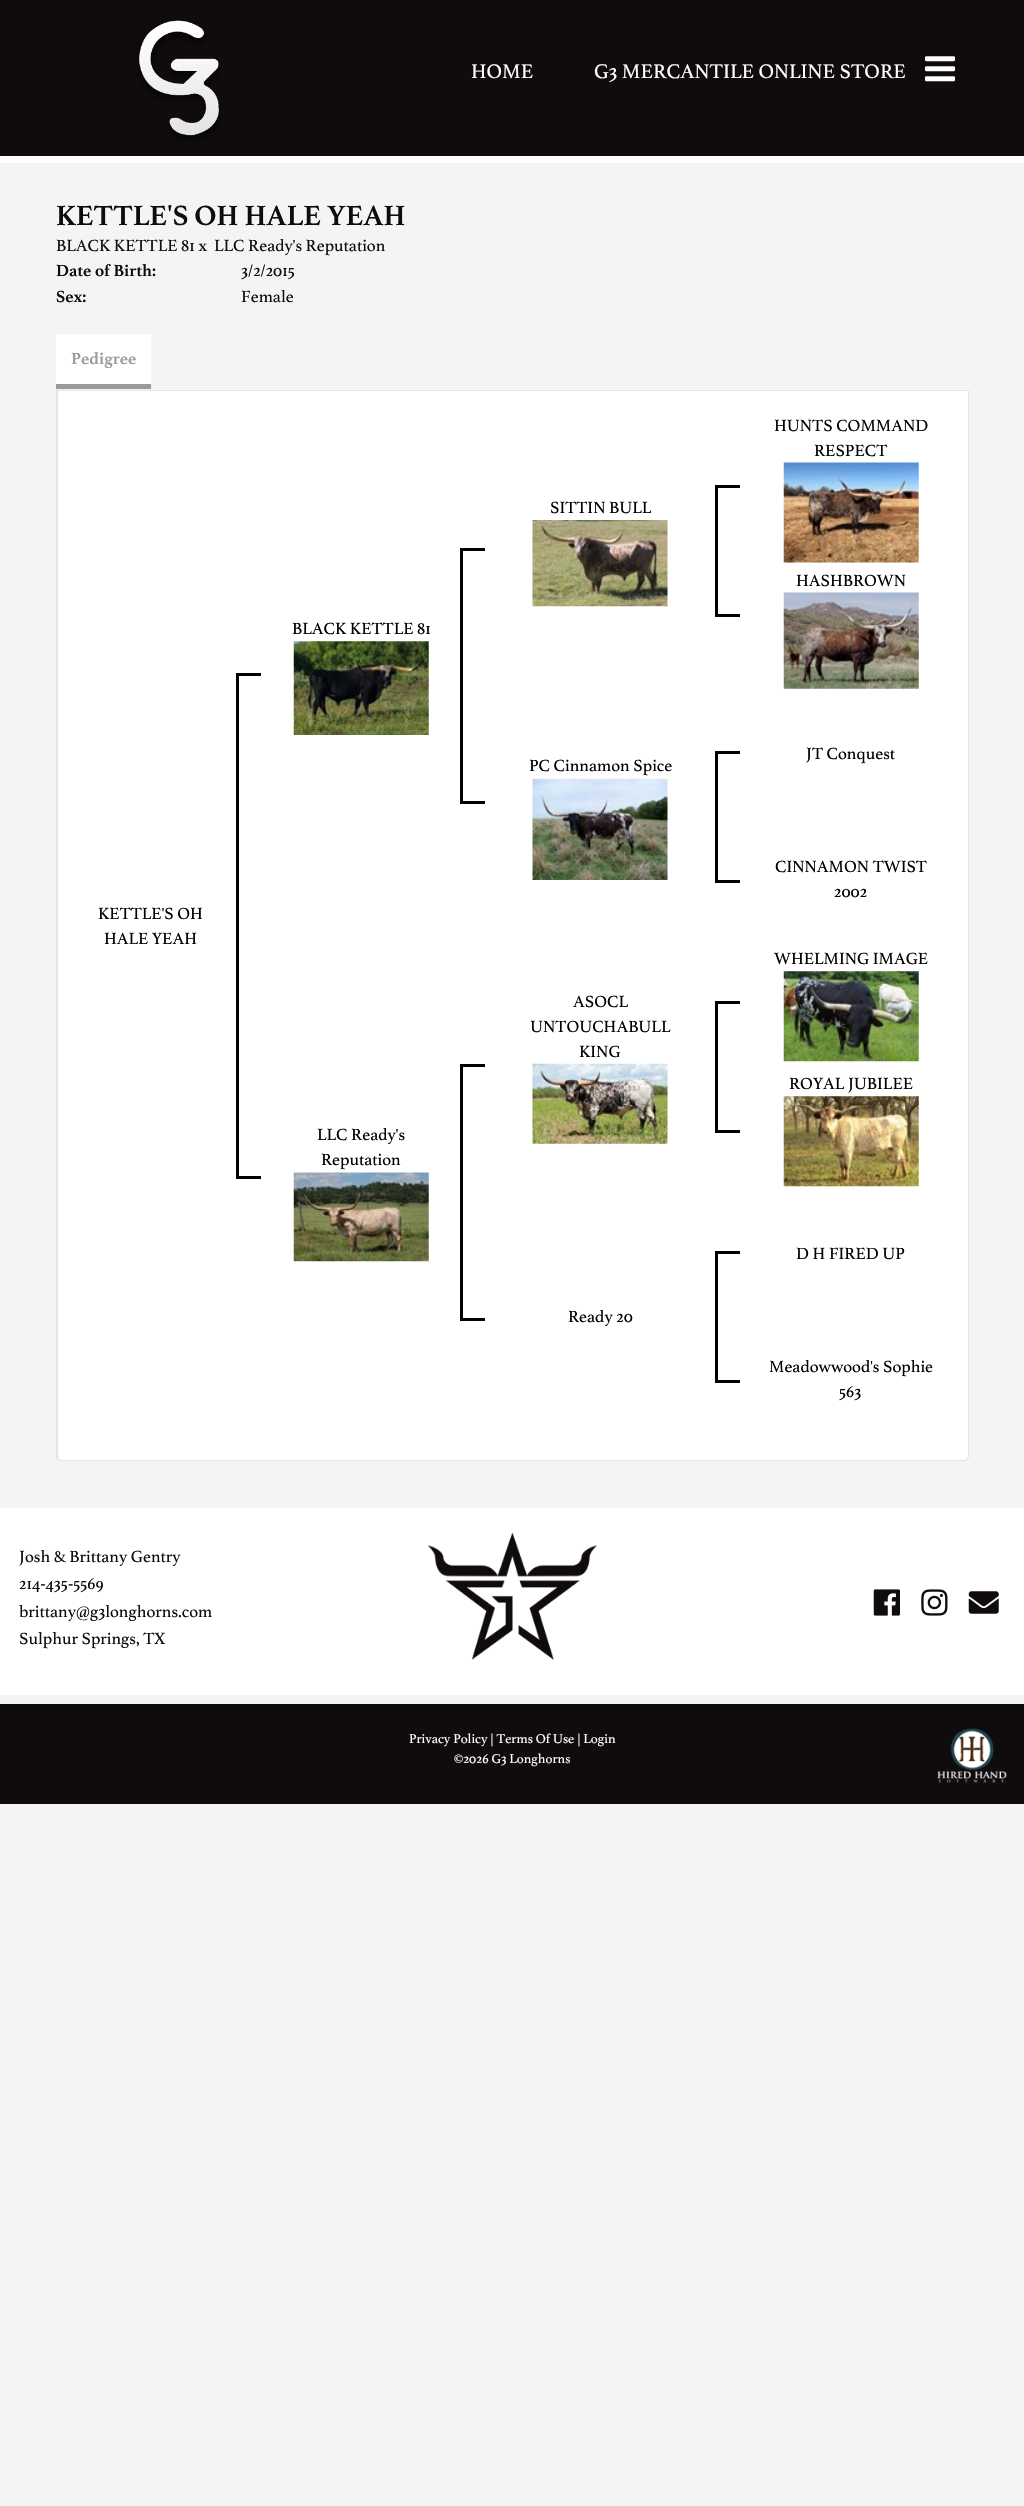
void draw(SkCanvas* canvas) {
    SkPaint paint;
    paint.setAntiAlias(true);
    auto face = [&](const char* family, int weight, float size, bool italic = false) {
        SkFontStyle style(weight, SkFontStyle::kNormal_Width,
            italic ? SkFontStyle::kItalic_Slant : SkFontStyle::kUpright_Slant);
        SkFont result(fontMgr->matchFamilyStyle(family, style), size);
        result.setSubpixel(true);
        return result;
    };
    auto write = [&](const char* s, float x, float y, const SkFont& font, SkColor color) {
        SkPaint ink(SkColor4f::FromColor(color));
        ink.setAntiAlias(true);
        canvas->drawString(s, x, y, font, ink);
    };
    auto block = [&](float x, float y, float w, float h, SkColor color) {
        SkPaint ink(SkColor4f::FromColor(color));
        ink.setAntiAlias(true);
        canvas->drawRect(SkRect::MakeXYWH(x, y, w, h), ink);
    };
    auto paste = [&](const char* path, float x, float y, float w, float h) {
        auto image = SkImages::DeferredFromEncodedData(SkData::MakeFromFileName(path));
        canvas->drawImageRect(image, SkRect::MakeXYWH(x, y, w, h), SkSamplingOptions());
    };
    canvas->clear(SkColorSetRGB(244, 244, 244));
    block(0, 0, 1024, 156, SkColorSetRGB(16, 11, 13));
    block(0, 156, 1024, 7, SK_ColorWHITE);
    paste("pic1.png", 137, 20, 84, 121);
    auto kFont1 = face("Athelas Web", 400, 21.25f);
    write("HOME", 471, 78, kFont1, SK_ColorWHITE);
    write("G3 MERCANTILE ONLINE STORE", 594, 78, kFont1, SK_ColorWHITE);
    paste("pic2.png", 925, 56, 30, 26);
    auto kFont2 = face("Athelas Web", 700, 30);
    write("KETTLE'S OH HALE YEAH", 56, 225, kFont2, SkColorSetRGB(16, 11, 13));
    auto kFont3 = face("Athelas Web", 400, 17.5f);
    write("BLACK KETTLE 81 x", 56, 251, kFont3, SkColorSetRGB(16, 11, 13));
    write("LLC Ready's Reputation", 214, 251, kFont3, SkColorSetRGB(16, 11, 13));
    auto kFont4 = face("Athelas Web", 700, 17.5f);
    write("Date of Birth:", 56, 276, kFont4, SkColorSetRGB(16, 11, 13));
    write("3/2/2015", 241, 276, kFont3, SkColorSetRGB(16, 11, 13));
    write("Sex:", 56, 302, kFont4, SkColorSetRGB(16, 11, 13));
    write("Female", 241, 302, kFont3, SkColorSetRGB(16, 11, 13));
    block(56, 390, 913, 1, SkColorSetRGB(229, 229, 229));
    block(56, 384, 95, 5, SkColorSetRGB(155, 153, 153));
    block(56, 334, 95, 50, SK_ColorWHITE);
    write("Pedigree", 71, 364, kFont4, SkColorSetRGB(155, 153, 153));
    paint.setColor(SK_ColorWHITE);
    canvas->drawPath(SkPathBuilder().moveTo(56, 391).lineTo(969, 391).lineTo(969, 1456).cubicTo(969, 1459, 967, 1461, 964, 1461).lineTo(61, 1461).cubicTo(58, 1461, 56, 1459, 56, 1456).close().detach(), paint);
    paint.setColor(SkColorSetRGB(229, 229, 229));
    canvas->drawPath(SkPathBuilder(SkPathFillType::kEvenOdd).moveTo(56, 391).lineTo(969, 391).lineTo(969, 1456).cubicTo(969, 1459, 967, 1461, 964, 1461).lineTo(61, 1461).cubicTo(58, 1461, 56, 1459, 56, 1456).close().moveTo(58, 391).lineTo(968, 391).lineTo(968, 1456).cubicTo(968, 1458, 966, 1460, 964, 1460).lineTo(61, 1460).cubicTo(59, 1460, 58, 1458, 58, 1456).close().detach(), paint);
    write("HUNTS COMMAND", 774, 431, kFont3, SK_ColorBLACK);
    write("RESPECT", 814, 456, kFont3, SK_ColorBLACK);
    paste("pic3.png", 783, 462, 136, 101);
    write("SITTIN BULL", 550, 513, kFont3, SK_ColorBLACK);
    paste("pic4.png", 532, 520, 136, 87);
    block(715, 485, 25, 3, SK_ColorBLACK);
    block(715, 614, 25, 3, SK_ColorBLACK);
    block(715, 485, 3, 131, SK_ColorBLACK);
    write("BLACK KETTLE 81", 292, 634, kFont3, SK_ColorBLACK);
    paste("pic5.png", 293, 641, 136, 94);
    block(460, 548, 25, 3, SK_ColorBLACK);
    block(460, 801, 25, 3, SK_ColorBLACK);
    block(460, 548, 3, 256, SK_ColorBLACK);
    write("KETTLE'S OH", 98, 919, kFont3, SK_ColorBLACK);
    write("HALE YEAH", 104, 944, kFont3, SK_ColorBLACK);
    block(236, 673, 25, 3, SK_ColorBLACK);
    block(236, 1176, 25, 3, SK_ColorBLACK);
    block(236, 673, 3, 506, SK_ColorBLACK);
    write("HASHBROWN", 796, 586, kFont3, SK_ColorBLACK);
    paste("pic6.png", 783, 592, 136, 97);
    write("PC Cinnamon Spice", 529, 771, kFont3, SK_ColorBLACK);
    paste("pic7.png", 532, 778, 136, 102);
    block(715, 751, 25, 3, SK_ColorBLACK);
    block(715, 880, 25, 3, SK_ColorBLACK);
    block(715, 751, 3, 132, SK_ColorBLACK);
    write("JT Conquest", 806, 759, kFont3, SK_ColorBLACK);
    write("CINNAMON TWIST", 775, 872, kFont3, SK_ColorBLACK);
    write("2002", 834, 897, kFont3, SK_ColorBLACK);
    write("WHELMING IMAGE", 774, 964, kFont3, SK_ColorBLACK);
    paste("pic8.png", 783, 971, 136, 91);
    write("LLC Ready's", 317, 1140, kFont3, SK_ColorBLACK);
    write("Reputation", 321, 1165, kFont3, SK_ColorBLACK);
    paste("pic9.png", 293, 1172, 136, 90);
    block(460, 1064, 25, 3, SK_ColorBLACK);
    block(460, 1318, 25, 3, SK_ColorBLACK);
    block(460, 1064, 3, 256, SK_ColorBLACK);
    write("ASOCL", 573, 1007, kFont3, SK_ColorBLACK);
    write("UNTOUCHABULL", 530, 1032, kFont3, SK_ColorBLACK);
    write("KING", 579, 1057, kFont3, SK_ColorBLACK);
    paste("pic10.png", 532, 1063, 136, 81);
    block(715, 1001, 25, 3, SK_ColorBLACK);
    block(715, 1130, 25, 3, SK_ColorBLACK);
    block(715, 1001, 3, 132, SK_ColorBLACK);
    write("ROYAL JUBILEE", 789, 1089, kFont3, SK_ColorBLACK);
    paste("pic11.png", 783, 1096, 136, 91);
    write("Ready 20", 568, 1322, kFont3, SK_ColorBLACK);
    block(715, 1251, 25, 3, SK_ColorBLACK);
    block(715, 1380, 25, 3, SK_ColorBLACK);
    block(715, 1251, 3, 132, SK_ColorBLACK);
    write("D H FIRED UP", 796, 1259, kFont3, SK_ColorBLACK);
    write("Meadowwood's Sophie", 769, 1372, kFont3, SK_ColorBLACK);
    write("563", 839, 1397, kFont3, SK_ColorBLACK);
    block(0, 1508, 1024, 187, SK_ColorWHITE);
    write("Josh & Brittany Gentry", 19, 1562, kFont3, SkColorSetRGB(16, 11, 13));
    write("214-435-5569", 19, 1589, kFont3, SkColorSetRGB(16, 11, 13));
    write("brittany@g3longhorns.com", 19, 1617, kFont3, SkColorSetRGB(16, 11, 13));
    write("Sulphur Springs, TX", 19, 1644, kFont3, SkColorSetRGB(16, 11, 13));
    paste("pic12.png", 428, 1532, 169, 128);
    paste("pic13.png", 873, 1589, 27, 27);
    paste("pic14.png", 921, 1589, 27, 27);
    paste("pic15.png", 968, 1591, 31, 23);
    block(0, 1704, 1024, 100, SkColorSetRGB(16, 11, 13));
    auto kFont5 = face("Athelas Web", 400, 13.75f);
    write("Privacy Policy | Terms Of Use | Login", 409, 1743, kFont5, SK_ColorWHITE);
    write("©2026 G3 Longhorns", 454, 1763, kFont5, SK_ColorWHITE);
    paste("pic16.png", 937, 1728, 70, 55);
}
